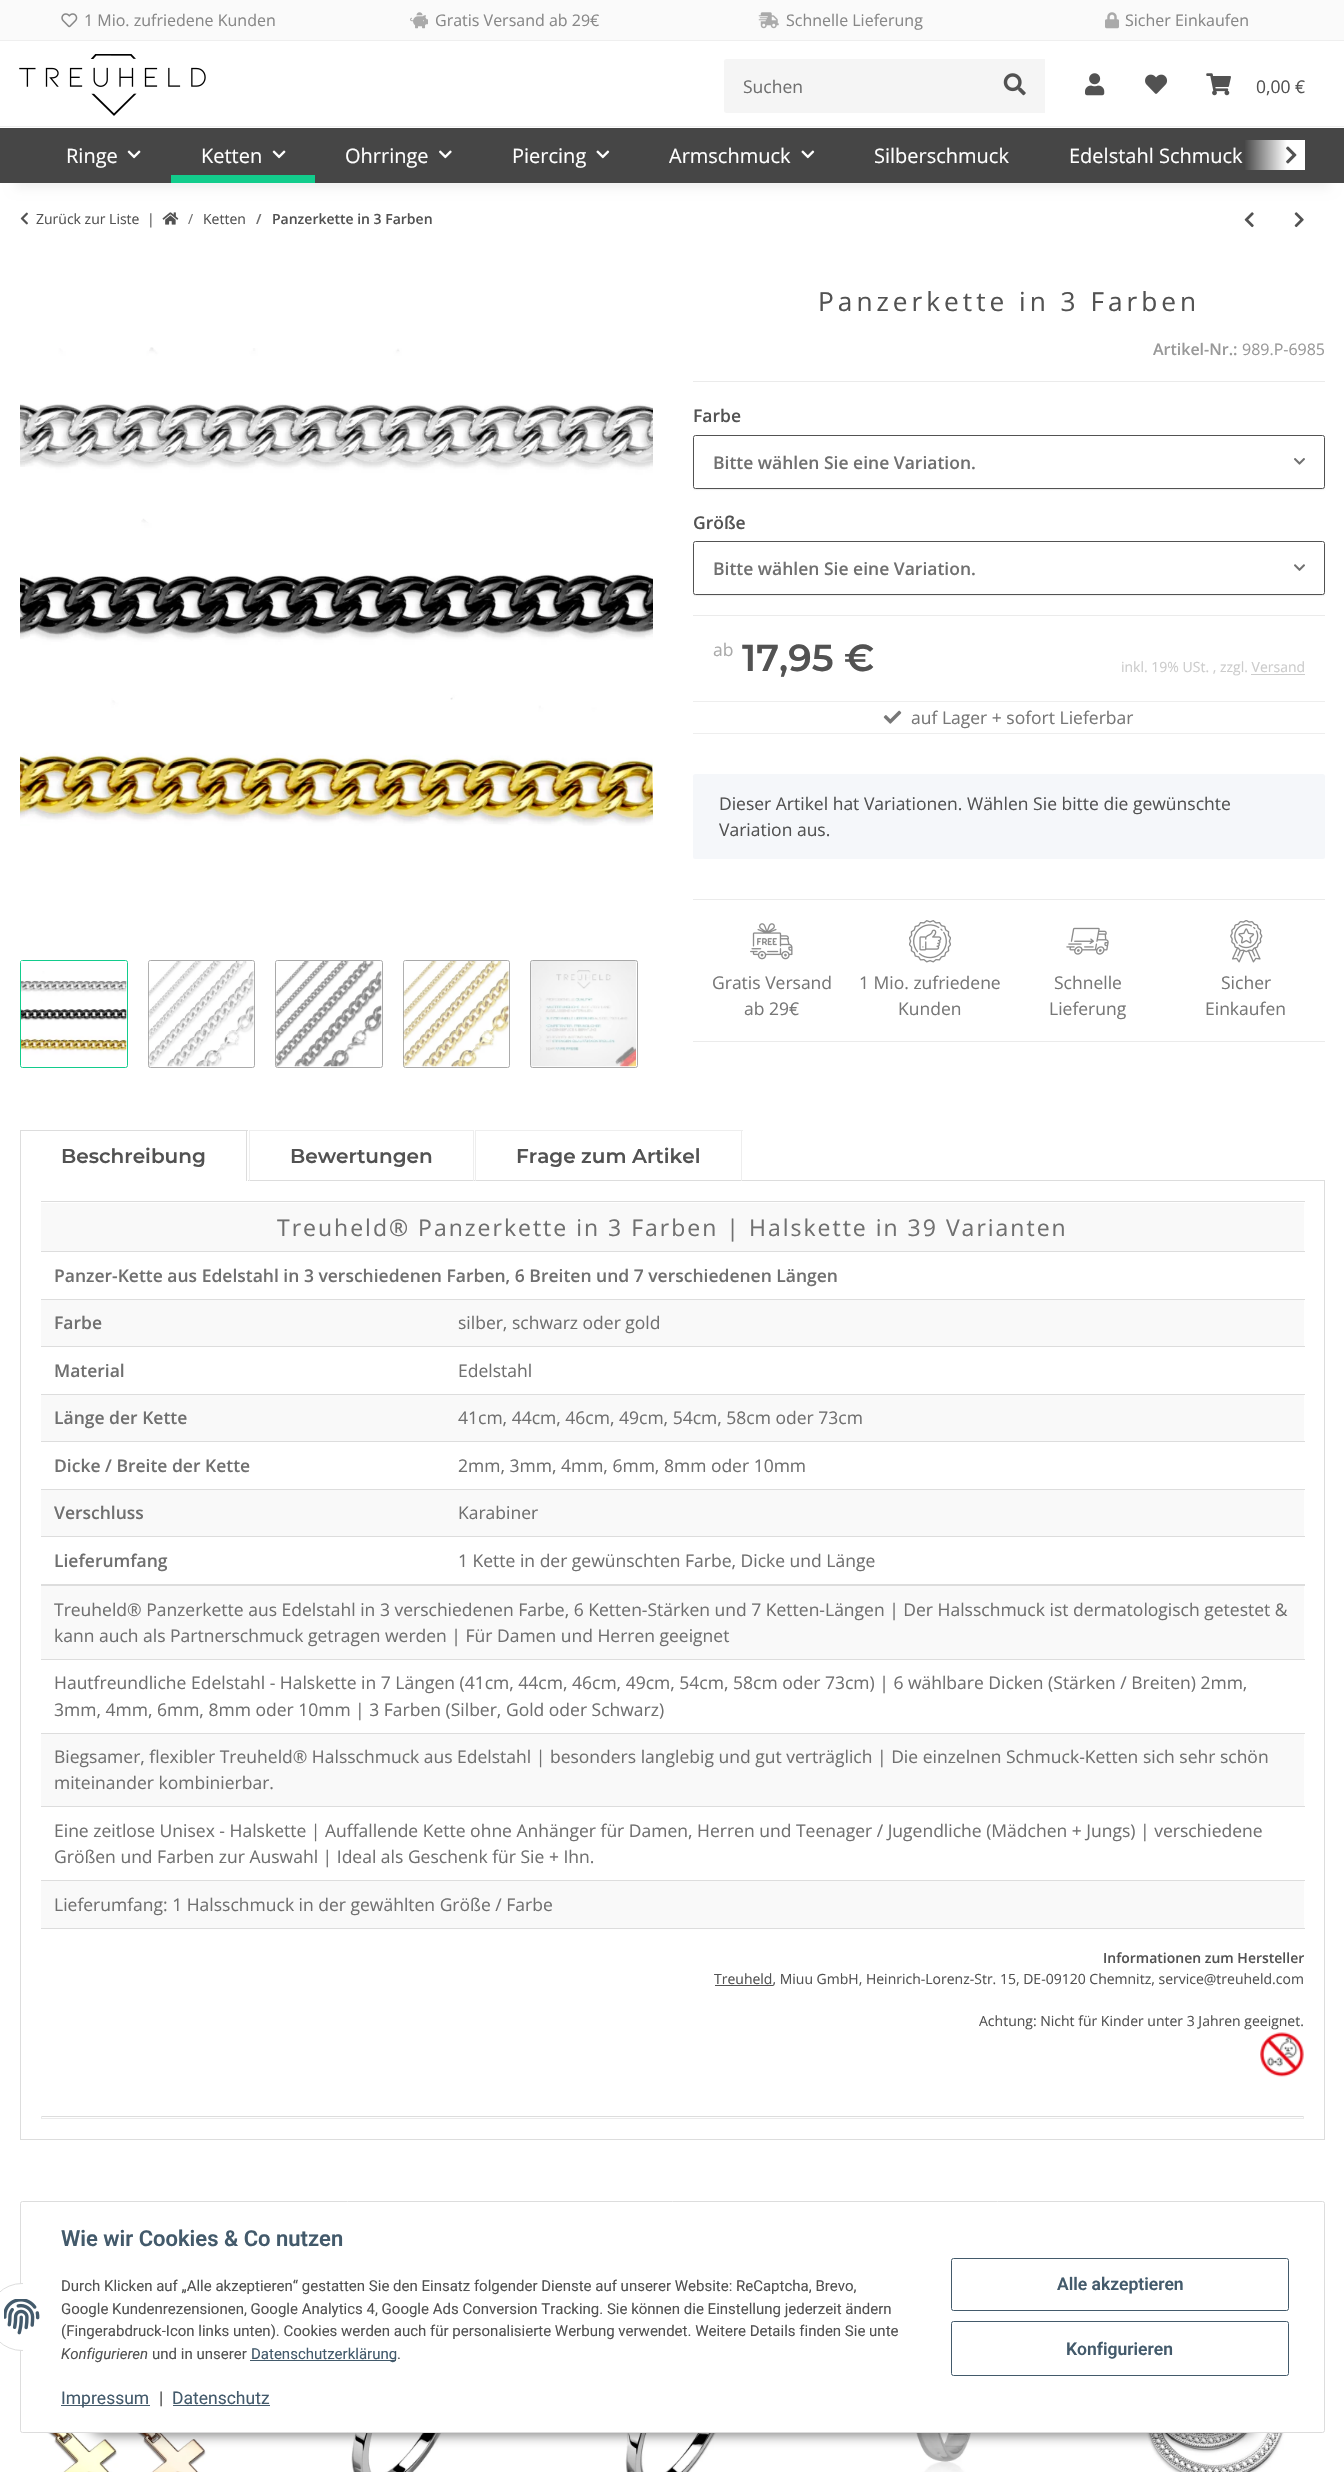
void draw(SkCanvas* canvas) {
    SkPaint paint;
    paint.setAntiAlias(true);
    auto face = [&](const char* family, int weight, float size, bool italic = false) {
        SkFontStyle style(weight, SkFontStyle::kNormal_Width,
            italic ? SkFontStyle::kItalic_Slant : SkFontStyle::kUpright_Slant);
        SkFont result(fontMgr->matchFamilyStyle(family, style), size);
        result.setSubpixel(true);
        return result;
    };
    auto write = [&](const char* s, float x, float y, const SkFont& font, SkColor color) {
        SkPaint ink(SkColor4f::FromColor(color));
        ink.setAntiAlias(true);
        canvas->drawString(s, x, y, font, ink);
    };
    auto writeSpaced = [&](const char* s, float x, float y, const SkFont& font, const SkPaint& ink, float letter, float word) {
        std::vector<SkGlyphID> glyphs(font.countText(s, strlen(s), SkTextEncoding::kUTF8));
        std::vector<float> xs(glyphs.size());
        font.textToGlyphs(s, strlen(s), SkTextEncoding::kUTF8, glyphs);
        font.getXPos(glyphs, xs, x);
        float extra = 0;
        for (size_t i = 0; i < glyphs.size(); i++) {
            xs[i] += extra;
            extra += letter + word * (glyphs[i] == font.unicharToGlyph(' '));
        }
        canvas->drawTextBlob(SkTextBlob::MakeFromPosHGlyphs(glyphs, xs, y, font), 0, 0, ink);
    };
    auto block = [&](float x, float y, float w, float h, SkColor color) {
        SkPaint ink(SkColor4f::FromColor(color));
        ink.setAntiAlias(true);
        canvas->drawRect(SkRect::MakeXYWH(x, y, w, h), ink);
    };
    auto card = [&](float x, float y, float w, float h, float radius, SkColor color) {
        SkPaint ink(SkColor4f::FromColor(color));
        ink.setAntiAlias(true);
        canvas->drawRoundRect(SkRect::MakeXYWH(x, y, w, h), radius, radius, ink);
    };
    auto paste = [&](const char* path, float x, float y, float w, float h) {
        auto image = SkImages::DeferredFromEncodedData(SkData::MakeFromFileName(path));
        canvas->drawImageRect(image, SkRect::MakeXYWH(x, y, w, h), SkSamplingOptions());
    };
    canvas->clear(SK_ColorWHITE);
    block(0, 0, 1344, 40, SkColorSetRGB(250, 250, 250));
    block(0, 40, 1344, 1, SkColorSetRGB(239, 239, 239));
    paste("pic1.png", 61, 13, 17, 15);
    auto kFont1 = face("Open Sans", 400, 16);
    write("1 Mio. zufriedene Kunden", 84, 26, kFont1, SkColorSetRGB(136, 136, 136));
    paste("pic2.png", 410, 12, 18, 17);
    write("Gratis Versand ab 29€", 435, 26, kFont1, SkColorSetRGB(136, 136, 136));
    paste("pic3.png", 758, 12, 21, 17);
    write("Schnelle Lieferung", 786, 26, kFont1, SkColorSetRGB(136, 136, 136));
    paste("pic4.png", 1105, 12, 14, 17);
    write("Sicher Einkaufen", 1125, 26, kFont1, SkColorSetRGB(136, 136, 136));
    block(0, 126, 1344, 1, SkColorSetRGB(239, 239, 239));
    paste("pic5.png", 19, 54, 187, 62);
    paint.setColor(SkColorSetRGB(245, 245, 245));
    canvas->drawPath(SkPathBuilder().moveTo(726.5f, 59).lineTo(985, 59).lineTo(985, 113).lineTo(726.5f, 113).cubicTo(725, 113, 724, 112, 724, 110.5f).lineTo(724, 61.5f).cubicTo(724, 60, 725, 59, 726.5f, 59).close().detach(), paint);
    auto kFont2 = face("Open Sans", 400, 17.5f);
    write("Suchen", 743, 93, kFont2, SkColorSetRGB(112, 112, 112));
    block(985, 59, 60, 54, SkColorSetRGB(245, 245, 245));
    paste("pic6.png", 1003, 73, 23, 23);
    paste("pic7.png", 1085, 73, 20, 23);
    paste("pic8.png", 1145, 74, 23, 20);
    paste("pic9.png", 1206, 73, 25, 23);
    write("0,00 €", 1256, 93, kFont2, SkColorSetRGB(82, 82, 82));
    paint.setColor(SkColorSetARGB(15, 0, 0, 0));
    paint.setMaskFilter(SkMaskFilter::MakeBlur(kNormal_SkBlurStyle, 5.5f));
    canvas->drawRect(SkRect::MakeXYWH(15, 163, 1315, 25), paint);
    paint.setMaskFilter(nullptr);
    block(0, 128, 1344, 55, SkColorSetRGB(70, 70, 70));
    auto kFont3 = face("Open Sans", 400, 20);
    write("Ringe", 66, 163, kFont3, SK_ColorWHITE);
    paste("pic10.png", 127, 150, 14, 9);
    write("Ketten", 201, 163, kFont3, SK_ColorWHITE);
    paste("pic10.png", 272, 150, 14, 9);
    block(171, 175, 144, 8, SkColorSetRGB(18, 204, 140));
    write("Ohrringe", 345, 163, kFont3, SK_ColorWHITE);
    paste("pic11.png", 439, 150, 13, 9);
    write("Piercing", 512, 163, kFont3, SK_ColorWHITE);
    paste("pic12.png", 596, 150, 14, 9);
    write("Armschmuck", 669, 163, kFont3, SK_ColorWHITE);
    paste("pic12.png", 801, 150, 14, 9);
    write("Silberschmuck", 874, 163, kFont3, SK_ColorWHITE);
    write("Edelstahl Schmuck", 1069, 163, kFont3, SK_ColorWHITE);
    {
        const SkColor colors[] = {SkColorSetARGB(3, 255, 255, 255), SK_ColorWHITE};
        const float stops[] = {0, 0.7f};
        const SkPoint ends[] = {{1245, 155}, {1305, 155}};
        paint.setShader(SkGradientShader::MakeLinear(ends, colors, stops, 2, SkTileMode::kClamp));
        paint.setAlpha(255);
    }
    canvas->drawRect(SkRect::MakeXYWH(1245, 140, 60, 30), paint);
    paste("pic13.png", 1286, 146, 11, 18);
    paste("pic14.png", 20, 212, 8, 13);
    auto kFont4 = face("Open Sans", 400, 14);
    write("Zurück zur Liste", 36, 224, kFont4, SkColorSetRGB(82, 82, 82));
    write("|", 147, 224, kFont4, SkColorSetRGB(82, 82, 82));
    paste("pic15.png", 162, 212, 17, 13);
    write("/", 188, 224, kFont4, SkColorSetRGB(112, 112, 112));
    write("Ketten", 203, 224, kFont4, SkColorSetRGB(82, 82, 82));
    auto kFont5 = face("Open Sans", 600, 14);
    write("/", 256, 224, kFont5, SkColorSetRGB(112, 112, 112));
    write("Panzerkette in 3 Farben", 272, 224, kFont5, SkColorSetRGB(82, 82, 82));
    paste("pic16.png", 1244, 212, 10, 16);
    paste("pic17.png", 1294, 212, 10, 16);
    paste("pic18.png", 20, 347, 633, 479);
    paint.setStyle(SkPaint::kStroke_Style);
    paint.setStrokeWidth(1);
    paint.setShader(nullptr);
    paint.setColor(SkColorSetRGB(18, 204, 140));
    canvas->drawRoundRect(SkRect::MakeXYWH(20.5f, 960.5f, 107, 107), 2, 2, paint);
    paste("pic19.png", 21, 961, 106, 106);
    paint.setColor(SkColorSetRGB(169, 169, 169));
    canvas->drawRoundRect(SkRect::MakeXYWH(148.5f, 960.5f, 106, 107), 2, 2, paint);
    paste("pic20.png", 148, 961, 107, 106);
    canvas->drawRoundRect(SkRect::MakeXYWH(275.5f, 960.5f, 107, 107), 2, 2, paint);
    paste("pic21.png", 276, 961, 106, 106);
    canvas->drawRoundRect(SkRect::MakeXYWH(403.5f, 960.5f, 106, 107), 2, 2, paint);
    paste("pic22.png", 403, 961, 107, 106);
    canvas->drawRoundRect(SkRect::MakeXYWH(530.5f, 960.5f, 107, 107), 2, 2, paint);
    paste("pic23.png", 531, 961, 105, 106);
    auto kFont6 = face("Open Sans", 400, 26.25f);
    paint.setStyle(SkPaint::kFill_Style);
    paint.setColor(SkColorSetRGB(82, 82, 82));
    writeSpaced("Panzerkette in 3 Farben", 818, 311, kFont6, paint, 4, 0);
    auto kFont7 = face("Open Sans", 600, 16);
    write("Artikel-Nr.:", 1153, 355, kFont7, SkColorSetRGB(153, 153, 153));
    write("989.P-6985", 1242, 355, kFont1, SkColorSetRGB(153, 153, 153));
    block(693, 381, 632, 1, SkColorSetRGB(235, 235, 235));
    auto kFont8 = face("Open Sans", 600, 17.5f);
    write("Farbe", 693, 422, kFont8, SkColorSetRGB(82, 82, 82));
    paint.setColor(SkColorSetARGB(18, 0, 0, 0));
    paint.setMaskFilter(SkMaskFilter::MakeBlur(kNormal_SkBlurStyle, 0.5f));
    canvas->drawRoundRect(SkRect::MakeXYWH(693, 436, 632, 54), 2.5f, 2.5f, paint);
    paint.setMaskFilter(nullptr);
    paint.setColor(SK_ColorWHITE);
    canvas->drawRoundRect(SkRect::MakeXYWH(693.5f, 435.5f, 631, 53), 2, 2, paint);
    paint.setStyle(SkPaint::kStroke_Style);
    paint.setColor(SkColorSetRGB(82, 82, 82));
    canvas->drawRoundRect(SkRect::MakeXYWH(693.5f, 435.5f, 631, 53), 2, 2, paint);
    write("Bitte wählen Sie eine Variation.", 713, 469, kFont8, SkColorSetRGB(112, 112, 112));
    paste("pic24.png", 1294, 458, 11, 7);
    write("Größe", 693, 529, kFont8, SkColorSetRGB(82, 82, 82));
    paint.setStyle(SkPaint::kFill_Style);
    paint.setColor(SkColorSetARGB(18, 0, 0, 0));
    paint.setMaskFilter(SkMaskFilter::MakeBlur(kNormal_SkBlurStyle, 0.5f));
    canvas->drawRoundRect(SkRect::MakeXYWH(693, 543, 632, 53), 2.5f, 2.5f, paint);
    paint.setMaskFilter(nullptr);
    paint.setColor(SK_ColorWHITE);
    canvas->drawRoundRect(SkRect::MakeXYWH(693.5f, 541.5f, 631, 53), 2, 2, paint);
    paint.setStyle(SkPaint::kStroke_Style);
    paint.setColor(SkColorSetRGB(82, 82, 82));
    canvas->drawRoundRect(SkRect::MakeXYWH(693.5f, 541.5f, 631, 53), 2, 2, paint);
    write("Bitte wählen Sie eine Variation.", 713, 575, kFont8, SkColorSetRGB(112, 112, 112));
    paste("pic25.png", 1294, 564, 11, 7);
    block(693, 615, 632, 1, SkColorSetRGB(235, 235, 235));
    write("ab", 713, 656, kFont2, SkColorSetRGB(170, 170, 170));
    auto kFont9 = face("Montserrat", 600, 37.5f);
    write("17,95 €", 742, 671, kFont9, SkColorSetRGB(82, 82, 82));
    write("inkl. 19% USt. , zzgl. Versand", 1121, 672, kFont4, SkColorSetRGB(204, 204, 204));
    block(1251, 674, 54, 1, SkColorSetRGB(204, 204, 204));
    block(693, 701, 632, 1, SkColorSetRGB(238, 238, 238));
    block(693, 733, 632, 1, SkColorSetRGB(238, 238, 238));
    paste("pic26.png", 883, 710, 19, 14);
    write("auf Lager + sofort Lieferbar", 911, 724, kFont2, SkColorSetRGB(119, 119, 119));
    card(693, 774, 632, 85, 2.5f, SkColorSetRGB(245, 247, 250));
    write("Dieser Artikel hat Variationen. Wählen Sie bitte die gewünschte", 719, 810, kFont2, SkColorSetRGB(82, 82, 82));
    write("Variation aus.", 719, 836, kFont2, SkColorSetRGB(82, 82, 82));
    block(693, 899, 632, 1, SkColorSetRGB(235, 235, 235));
    block(693, 1041, 632, 1, SkColorSetRGB(235, 235, 235));
    paste("pic27.png", 750, 923, 43, 37);
    write("Gratis Versand", 712, 989, kFont2, SkColorSetRGB(119, 119, 119));
    write("ab 29€", 744, 1015, kFont2, SkColorSetRGB(119, 119, 119));
    paste("pic28.png", 909, 920, 42, 43);
    write("1 Mio. zufriedene", 859, 989, kFont2, SkColorSetRGB(119, 119, 119));
    write("Kunden", 898, 1015, kFont2, SkColorSetRGB(119, 119, 119));
    paste("pic29.png", 1066, 927, 43, 28);
    write("Schnelle", 1054, 989, kFont2, SkColorSetRGB(119, 119, 119));
    write("Lieferung", 1049, 1015, kFont2, SkColorSetRGB(119, 119, 119));
    paste("pic30.png", 1230, 920, 33, 43);
    write("Sicher", 1221, 989, kFont2, SkColorSetRGB(119, 119, 119));
    write("Einkaufen", 1205, 1015, kFont2, SkColorSetRGB(119, 119, 119));
    paint.setColor(SkColorSetRGB(221, 221, 221));
    canvas->drawRect(SkRect::MakeXYWH(20.5f, 1180.5f, 1304, 959), paint);
    block(21, 1180, 227, 1, SK_ColorWHITE);
    block(20, 1130, 228, 1, SkColorSetRGB(221, 221, 221));
    block(246, 1130, 1, 51, SkColorSetRGB(221, 221, 221));
    block(20, 1130, 1, 51, SkColorSetRGB(221, 221, 221));
    auto kFont10 = face("Montserrat", 600, 20);
    write("Beschreibung", 61, 1163, kFont10, SkColorSetRGB(82, 82, 82));
    block(249, 1130, 225, 1, SkColorSetRGB(238, 238, 238));
    block(473, 1130, 1, 51, SkColorSetRGB(238, 238, 238));
    block(249, 1130, 1, 51, SkColorSetRGB(238, 238, 238));
    write("Bewertungen", 290, 1163, kFont10, SkColorSetRGB(82, 82, 82));
    block(475, 1130, 268, 1, SkColorSetRGB(238, 238, 238));
    block(741, 1130, 1, 51, SkColorSetRGB(238, 238, 238));
    block(475, 1130, 1, 51, SkColorSetRGB(238, 238, 238));
    write("Frage zum Artikel", 516, 1163, kFont10, SkColorSetRGB(82, 82, 82));
    block(41, 1201, 1264, 1, SkColorSetRGB(221, 221, 221));
    block(41, 1251, 1264, 1, SkColorSetRGB(221, 221, 221));
    block(41, 1203, 1263, 48, SkColorSetRGB(249, 249, 249));
    auto kFont11 = face("Open Sans", 400, 23);
    paint.setStyle(SkPaint::kFill_Style);
    paint.setColor(SkColorSetRGB(112, 112, 112));
    writeSpaced("Treuheld® Panzerkette in 3 Farben | Halskette in 39 Varianten", 277, 1236, kFont11, paint, 2, 0);
    block(41, 1299, 1264, 1, SkColorSetRGB(221, 221, 221));
    write("Panzer-Kette aus Edelstahl in 3 verschiedenen Farben, 6 Breiten und 7 verschiedenen Längen", 54, 1282, kFont8, SkColorSetRGB(112, 112, 112));
    block(41, 1346, 1264, 1, SkColorSetRGB(221, 221, 221));
    block(41, 1300, 1263, 46, SkColorSetRGB(249, 249, 249));
    write("Farbe", 54, 1329, kFont8, SkColorSetRGB(112, 112, 112));
    write("silber, schwarz oder gold", 458, 1329, kFont2, SkColorSetRGB(112, 112, 112));
    block(41, 1394, 1264, 1, SkColorSetRGB(221, 221, 221));
    write("Material", 54, 1377, kFont8, SkColorSetRGB(112, 112, 112));
    write("Edelstahl", 458, 1377, kFont2, SkColorSetRGB(112, 112, 112));
    block(41, 1441, 1264, 1, SkColorSetRGB(221, 221, 221));
    block(41, 1395, 1263, 46, SkColorSetRGB(249, 249, 249));
    write("Länge der Kette", 54, 1424, kFont8, SkColorSetRGB(112, 112, 112));
    write("41cm, 44cm, 46cm, 49cm, 54cm, 58cm oder 73cm", 458, 1424, kFont2, SkColorSetRGB(112, 112, 112));
    block(41, 1489, 1264, 1, SkColorSetRGB(221, 221, 221));
    write("Dicke / Breite der Kette", 54, 1472, kFont8, SkColorSetRGB(112, 112, 112));
    write("2mm, 3mm, 4mm, 6mm, 8mm oder 10mm", 458, 1472, kFont2, SkColorSetRGB(112, 112, 112));
    block(41, 1536, 1264, 1, SkColorSetRGB(221, 221, 221));
    block(41, 1490, 1263, 46, SkColorSetRGB(249, 249, 249));
    write("Verschluss", 54, 1519, kFont8, SkColorSetRGB(112, 112, 112));
    write("Karabiner", 458, 1519, kFont2, SkColorSetRGB(112, 112, 112));
    block(41, 1584, 1264, 2, SkColorSetRGB(221, 221, 221));
    write("Lieferumfang", 54, 1567, kFont8, SkColorSetRGB(112, 112, 112));
    write("1 Kette in der gewünschten Farbe, Dicke und Länge", 458, 1567, kFont2, SkColorSetRGB(112, 112, 112));
    block(41, 1659, 1264, 1, SkColorSetRGB(221, 221, 221));
    block(41, 1586, 1263, 73, SkColorSetRGB(249, 249, 249));
    write("Treuheld® Panzerkette aus Edelstahl in 3 verschiedenen Farbe, 6 Ketten-Stärken und 7 Ketten-Längen | Der Halsschmuck ist dermatologisch getestet &", 54, 1616, kFont2, SkColorSetRGB(112, 112, 112));
    write("kann auch als Partnerschmuck getragen werden | Für Damen und Herren geeignet", 54, 1642, kFont2, SkColorSetRGB(112, 112, 112));
    block(41, 1733, 1264, 1, SkColorSetRGB(221, 221, 221));
    write("Hautfreundliche Edelstahl - Halskette in 7 Längen (41cm, 44cm, 46cm, 49cm, 54cm, 58cm oder 73cm) | 6 wählbare Dicken (Stärken / Breiten) 2mm,", 54, 1689, kFont2, SkColorSetRGB(112, 112, 112));
    write("3mm, 4mm, 6mm, 8mm oder 10mm | 3 Farben (Silber, Gold oder Schwarz)", 54, 1716, kFont2, SkColorSetRGB(112, 112, 112));
    block(41, 1806, 1264, 1, SkColorSetRGB(221, 221, 221));
    block(41, 1734, 1263, 72, SkColorSetRGB(249, 249, 249));
    write("Biegsamer, flexibler Treuheld® Halsschmuck aus Edelstahl | besonders langlebig und gut verträglich | Die einzelnen Schmuck-Ketten sich sehr schön", 54, 1763, kFont2, SkColorSetRGB(112, 112, 112));
    write("miteinander kombinierbar.", 54, 1789, kFont2, SkColorSetRGB(112, 112, 112));
    block(41, 1880, 1264, 1, SkColorSetRGB(221, 221, 221));
    write("Eine zeitlose Unisex - Halskette | Auffallende Kette ohne Anhänger für Damen, Herren und Teenager / Jugendliche (Mädchen + Jungs) | verschiedene", 54, 1837, kFont2, SkColorSetRGB(112, 112, 112));
    write("Größen und Farben zur Auswahl | Ideal als Geschenk für Sie + Ihn.", 54, 1863, kFont2, SkColorSetRGB(112, 112, 112));
    block(41, 1928, 1264, 1, SkColorSetRGB(221, 221, 221));
    block(41, 1881, 1263, 47, SkColorSetRGB(249, 249, 249));
    write("Lieferumfang: 1 Halsschmuck in der gewählten Größe / Farbe", 54, 1911, kFont2, SkColorSetRGB(112, 112, 112));
    write("Informationen zum Hersteller", 1103, 1963, kFont5, SkColorSetRGB(82, 82, 82));
    block(715, 1985, 58, 1, SkColorSetRGB(82, 82, 82));
    write("Treuheld, Miuu GmbH, Heinrich-Lorenz-Str. 15, DE-09120 Chemnitz, service@treuheld.com", 714, 1984, kFont4, SkColorSetRGB(82, 82, 82));
    write("Achtung: Nicht für Kinder unter 3 Jahren geeignet.", 979, 2026, kFont4, SkColorSetRGB(82, 82, 82));
    paste("pic31.png", 1260, 2032, 44, 45);
    block(41, 2116, 1263, 1, SkColorSetRGB(221, 221, 221));
    block(1303, 2116, 1, 3, SkColorSetRGB(235, 235, 235));
    block(41, 2118, 1263, 1, SkColorSetRGB(235, 235, 235));
    block(41, 2116, 1, 3, SkColorSetRGB(235, 235, 235));
    paste("pic32.png", 40, 2433, 186, 39);
    paste("pic33.png", 351, 2433, 114, 39);
    paste("pic34.png", 625, 2433, 112, 39);
    paste("pic35.png", 910, 2433, 67, 39);
    paste("pic36.png", 1146, 2433, 140, 39);
    paint.setColor(SkColorSetARGB(115, 0, 0, 0));
    paint.setMaskFilter(SkMaskFilter::MakeBlur(kNormal_SkBlurStyle, 6));
    canvas->drawRoundRect(SkRect::MakeXYWH(86, 2396, 1173, 40), 20, 20, paint);
    paint.setMaskFilter(nullptr);
    paint.setColor(SK_ColorWHITE);
    canvas->drawRoundRect(SkRect::MakeXYWH(20.5f, 2201.5f, 1304, 231), 2, 2, paint);
    paint.setStyle(SkPaint::kStroke_Style);
    paint.setColor(SkColorSetRGB(221, 221, 221));
    canvas->drawRoundRect(SkRect::MakeXYWH(20.5f, 2201.5f, 1304, 231), 2, 2, paint);
    paint.setStyle(SkPaint::kFill_Style);
    paint.setColor(SK_ColorWHITE);
    canvas->drawCircle(22, 2317, 33.5f, paint);
    paint.setStyle(SkPaint::kStroke_Style);
    paint.setColor(SkColorSetRGB(221, 221, 221));
    canvas->drawCircle(22, 2317, 33.5f, paint);
    block(23, 2283, 33, 68, SK_ColorWHITE);
    paste("pic37.png", 4, 2299, 36, 36);
    auto kFont12 = face("Roboto", 600, 22);
    write("Wie wir Cookies & Co nutzen", 61, 2246, kFont12, SkColorSetRGB(67, 90, 107));
    auto kFont13 = face("Roboto", 400, 15);
    write("Durch Klicken auf „Alle akzeptieren“ gestatten Sie den Einsatz folgender Dienste auf unserer Website: ReCaptcha, Brevo,", 61, 2291, kFont13, SkColorSetRGB(82, 82, 82));
    write("Google Kundenrezensionen, Google Analytics 4, Google Ads Conversion Tracking. Sie können die Einstellung jederzeit ändern", 61, 2314, kFont13, SkColorSetRGB(82, 82, 82));
    write("(Fingerabdruck-Icon links unten). Cookies werden auch für personalisierte Werbung verwendet. Weitere Details finden Sie unte", 61, 2336, kFont13, SkColorSetRGB(82, 82, 82));
    auto kFont14 = face("Roboto", 400, 15, true);
    write("Konfigurieren", 61, 2359, kFont14, SkColorSetRGB(82, 82, 82));
    write("und in unserer", 152, 2359, kFont13, SkColorSetRGB(82, 82, 82));
    block(250, 2360, 146, 1, SkColorSetRGB(67, 90, 107));
    write("Datenschutzerklärung", 251, 2359, kFont13, SkColorSetRGB(67, 90, 107));
    write(".", 397, 2359, kFont13, SkColorSetRGB(82, 82, 82));
    block(61, 2405, 89, 1, SkColorSetRGB(67, 90, 107));
    auto kFont15 = face("Roboto", 400, 17.5f);
    write("Impressum", 61, 2404, kFont15, SkColorSetRGB(67, 90, 107));
    write("|", 159, 2404, kFont15, SkColorSetRGB(82, 82, 82));
    write("Datenschutz", 172, 2404, kFont15, SkColorSetRGB(67, 90, 107));
    block(173, 2405, 97, 1, SkColorSetRGB(67, 90, 107));
    paint.setColor(SkColorSetRGB(67, 90, 107));
    canvas->drawRoundRect(SkRect::MakeXYWH(951.5f, 2258.5f, 337, 52), 2, 2, paint);
    auto kFont16 = face("Roboto", 600, 17.5f);
    write("Alle akzeptieren", 1057, 2290, kFont16, SkColorSetRGB(67, 90, 107));
    canvas->drawRoundRect(SkRect::MakeXYWH(951.5f, 2321.5f, 337, 54), 2, 2, paint);
    write("Konfigurieren", 1066, 2355, kFont16, SkColorSetRGB(67, 90, 107));
}
